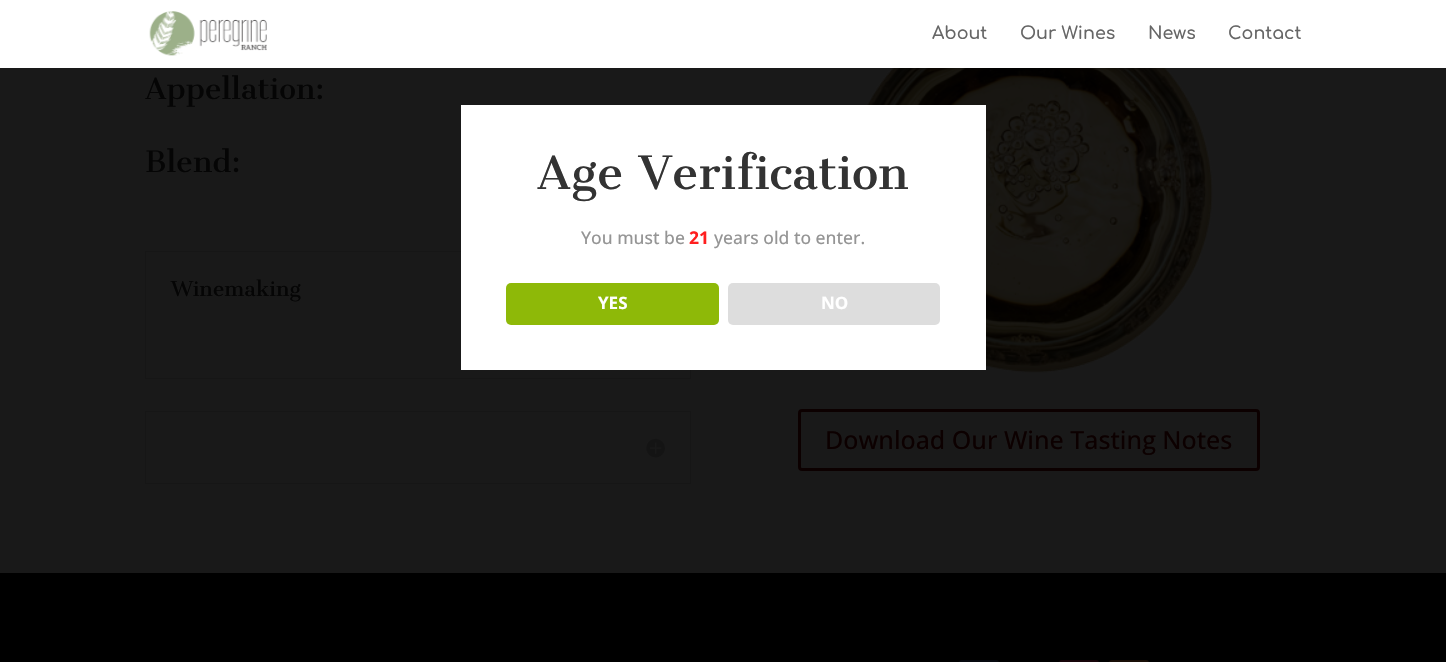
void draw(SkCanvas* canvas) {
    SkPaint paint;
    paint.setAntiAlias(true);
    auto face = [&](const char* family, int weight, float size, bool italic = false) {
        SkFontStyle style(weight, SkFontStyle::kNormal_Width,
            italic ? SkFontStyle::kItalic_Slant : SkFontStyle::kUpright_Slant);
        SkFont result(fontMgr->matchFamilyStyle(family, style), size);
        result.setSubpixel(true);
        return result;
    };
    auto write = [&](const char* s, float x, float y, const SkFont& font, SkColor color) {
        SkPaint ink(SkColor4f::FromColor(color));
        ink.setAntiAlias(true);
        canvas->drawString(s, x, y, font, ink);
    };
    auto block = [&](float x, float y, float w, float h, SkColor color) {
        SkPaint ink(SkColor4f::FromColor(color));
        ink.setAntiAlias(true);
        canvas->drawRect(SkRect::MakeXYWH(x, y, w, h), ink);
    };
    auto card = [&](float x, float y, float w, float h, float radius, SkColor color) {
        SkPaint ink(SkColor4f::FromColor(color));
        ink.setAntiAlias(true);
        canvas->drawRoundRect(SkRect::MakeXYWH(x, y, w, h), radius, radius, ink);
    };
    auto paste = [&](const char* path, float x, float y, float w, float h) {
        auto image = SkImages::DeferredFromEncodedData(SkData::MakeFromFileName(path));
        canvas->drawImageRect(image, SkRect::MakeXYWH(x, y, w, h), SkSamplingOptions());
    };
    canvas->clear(SK_ColorBLACK);
    block(0, 0, 1446, 68, SK_ColorWHITE);
    paste("pic1.png", 149, 11, 118, 45);
    auto kFont1 = face("Comfortaa", 600, 17.5f);
    write("About", 932, 39, kFont1, SkColorSetRGB(102, 102, 102));
    write("Our Wines", 1020, 39, kFont1, SkColorSetRGB(102, 102, 102));
    write("News", 1148, 39, kFont1, SkColorSetRGB(102, 102, 102));
    write("Contact", 1228, 39, kFont1, SkColorSetRGB(102, 102, 102));
    block(0, 68, 1446, 505, SkColorSetRGB(25, 25, 25));
    auto kFont2 = face("Cantata One", 400, 28.75f);
    write("Appellation:", 145, 99, kFont2, SkColorSetRGB(5, 5, 5));
    write("Blend:", 145, 172, kFont2, SkColorSetRGB(5, 5, 5));
    paint.setStyle(SkPaint::kStroke_Style);
    paint.setStrokeWidth(1);
    paint.setColor(SkColorSetRGB(22, 22, 22));
    canvas->drawRect(SkRect::MakeXYWH(145.5f, 251.5f, 545, 127), paint);
    auto kFont3 = face("Cantata One", 400, 20);
    write("Winemaking", 171, 296, kFont3, SkColorSetRGB(5, 5, 5));
    canvas->drawRect(SkRect::MakeXYWH(145.5f, 411.5f, 545, 72), paint);
    paste("pic2.png", 646, 438, 19, 20);
    paste("pic3.png", 866, 68, 347, 305);
    paint.setStrokeWidth(3);
    paint.setColor(SkColorSetRGB(12, 0, 0));
    canvas->drawRoundRect(SkRect::MakeXYWH(799.5f, 410.5f, 459, 59), 2.5f, 2.5f, paint);
    auto kFont4 = face("Open Sans", 500, 25);
    write("Download Our Wine Tasting Notes", 825, 449, kFont4, SkColorSetRGB(12, 0, 0));
    card(959, 660, 40, 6, 4, SkColorSetRGB(6, 9, 15));
    card(1059, 660, 40, 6, 4, SkColorSetRGB(23, 4, 9));
    card(1109, 660, 40, 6, 4, SkColorSetRGB(25, 14, 6));
    block(461, 105, 525, 265, SK_ColorWHITE);
    auto kFont5 = face("Cantata One", 400, 45);
    write("Age Verification", 537, 189, kFont5, SkColorSetRGB(51, 51, 51));
    auto kFont6 = face("Open Sans", 500, 17.5f);
    write("You must be", 581, 244, kFont6, SkColorSetRGB(149, 149, 149));
    auto kFont7 = face("Open Sans", 700, 17.5f);
    write("21", 689, 244, kFont7, SkColorSetRGB(255, 31, 31));
    write("years old to enter.", 714, 244, kFont6, SkColorSetRGB(149, 149, 149));
    card(506, 283, 213, 42, 5, SkColorSetRGB(142, 185, 8));
    auto kFont8 = face("Open Sans", 700, 17);
    write("YES", 598, 309, kFont8, SK_ColorWHITE);
    card(728, 283, 212, 42, 5, SkColorSetRGB(221, 221, 221));
    write("NO", 821, 309, kFont8, SK_ColorWHITE);
}
